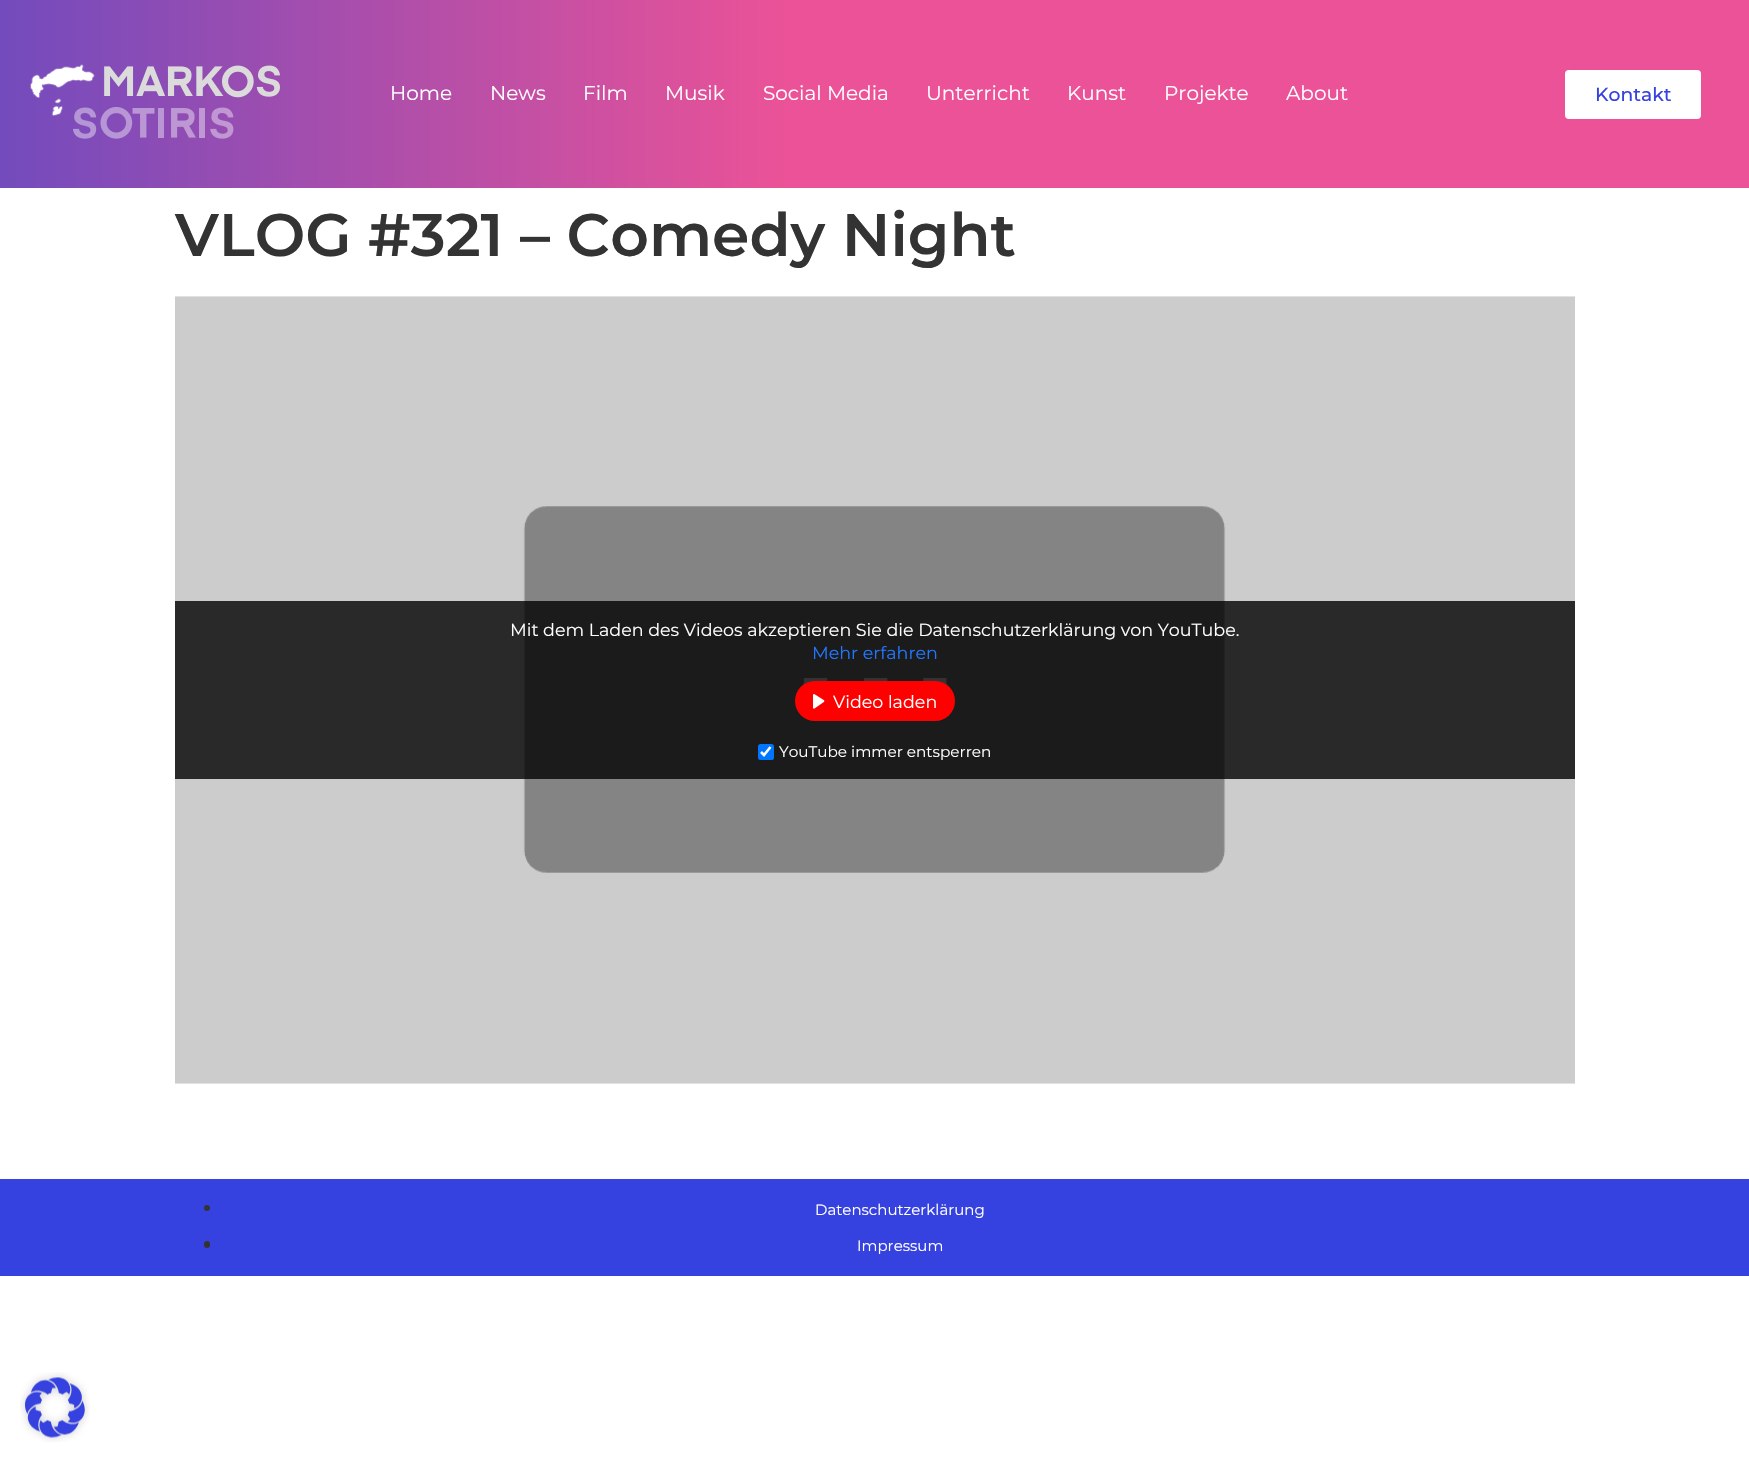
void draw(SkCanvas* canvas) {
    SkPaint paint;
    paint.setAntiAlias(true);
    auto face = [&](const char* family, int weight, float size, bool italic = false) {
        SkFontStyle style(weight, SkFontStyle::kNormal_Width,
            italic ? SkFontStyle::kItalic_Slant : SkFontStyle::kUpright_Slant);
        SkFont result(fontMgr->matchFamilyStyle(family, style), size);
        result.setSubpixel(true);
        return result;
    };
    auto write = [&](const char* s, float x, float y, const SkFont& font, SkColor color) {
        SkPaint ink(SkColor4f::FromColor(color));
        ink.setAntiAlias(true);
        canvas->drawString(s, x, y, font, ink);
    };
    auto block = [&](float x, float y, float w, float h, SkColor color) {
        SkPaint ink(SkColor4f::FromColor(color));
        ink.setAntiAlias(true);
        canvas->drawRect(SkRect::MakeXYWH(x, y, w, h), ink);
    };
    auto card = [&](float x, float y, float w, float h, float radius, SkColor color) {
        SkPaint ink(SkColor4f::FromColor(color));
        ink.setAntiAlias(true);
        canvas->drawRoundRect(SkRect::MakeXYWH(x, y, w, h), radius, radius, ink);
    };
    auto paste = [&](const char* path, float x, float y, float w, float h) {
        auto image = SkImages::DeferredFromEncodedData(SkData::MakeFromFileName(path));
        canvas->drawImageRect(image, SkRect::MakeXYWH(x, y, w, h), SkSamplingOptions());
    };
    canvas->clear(SK_ColorWHITE);
    {
        const SkColor colors[] = {SkColorSetRGB(115, 75, 189), SkColorSetRGB(235, 82, 151)};
        const float stops[] = {0, 0.45f};
        const SkPoint ends[] = {{0, 94}, {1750, 94}};
        paint.setShader(SkGradientShader::MakeLinear(ends, colors, stops, 2, SkTileMode::kClamp));
        paint.setAlpha(255);
    }
    canvas->drawRect(SkRect::MakeXYWH(0, 0, 1749, 188), paint);
    paste("pic1.png", 30, 64, 250, 75);
    auto kFont1 = face("Montserrat", 400, 20);
    write("Home", 390, 100, kFont1, SK_ColorWHITE);
    write("News", 490, 100, kFont1, SK_ColorWHITE);
    write("Film", 583, 100, kFont1, SK_ColorWHITE);
    write("Musik", 665, 100, kFont1, SK_ColorWHITE);
    write("Social Media", 763, 100, kFont1, SK_ColorWHITE);
    write("Unterricht", 926, 100, kFont1, SK_ColorWHITE);
    write("Kunst", 1067, 100, kFont1, SK_ColorWHITE);
    write("Projekte", 1164, 100, kFont1, SK_ColorWHITE);
    write("About", 1286, 100, kFont1, SK_ColorWHITE);
    card(1565, 70, 136, 49, 4, SK_ColorWHITE);
    auto kFont2 = face("Montserrat", 500, 18.75f);
    write("Kontakt", 1595, 101, kFont2, SkColorSetRGB(54, 66, 223));
    auto kFont3 = face("Montserrat", 600, 60);
    write("VLOG #321 – Comedy Night", 175, 256, kFont3, SkColorSetRGB(51, 51, 51));
    paste("pic2.png", 175, 296, 1400, 788);
    block(175, 601, 1400, 178, SkColorSetARGB(204, 0, 0, 0));
    auto kFont4 = face("Montserrat", 400, 17.5f);
    write("Mit dem Laden des Videos akzeptieren Sie die Datenschutzerklärung von YouTube.", 510, 636, kFont4, SK_ColorWHITE);
    write("Mehr erfahren", 812, 659, kFont4, SkColorSetRGB(34, 119, 255));
    card(795, 681, 160, 40, 20, SkColorSetRGB(255, 0, 0));
    paste("pic3.png", 813, 694, 12, 15);
    write("Video laden", 833, 708, kFont4, SK_ColorWHITE);
    card(758, 744, 16, 16, 2.5f, SkColorSetRGB(0, 117, 255));
    paint.setStyle(SkPaint::kStroke_Style);
    paint.setStrokeWidth(2.6f);
    paint.setShader(nullptr);
    paint.setColor(SK_ColorWHITE);
    canvas->drawPath(SkPathBuilder().moveTo(761, 752).lineTo(764, 755).lineTo(770.5f, 747).detach(), paint);
    auto kFont5 = face("Montserrat", 400, 15.25f);
    write("YouTube immer entsperren", 779, 757, kFont5, SK_ColorWHITE);
    block(0, 1179, 1749, 97, SkColorSetRGB(54, 66, 223));
    paint.setStyle(SkPaint::kFill_Style);
    paint.setColor(SkColorSetRGB(51, 51, 51));
    canvas->drawCircle(207, 1208, 3, paint);
    auto kFont6 = face("Montserrat", 400, 15);
    write("Datenschutzerklärung", 815, 1215, kFont6, SK_ColorWHITE);
    card(204, 1241, 6, 7, 3, SkColorSetRGB(51, 51, 51));
    write("Impressum", 857, 1251, kFont6, SK_ColorWHITE);
    paste("pic4.png", 20, 1372, 70, 70);
}
